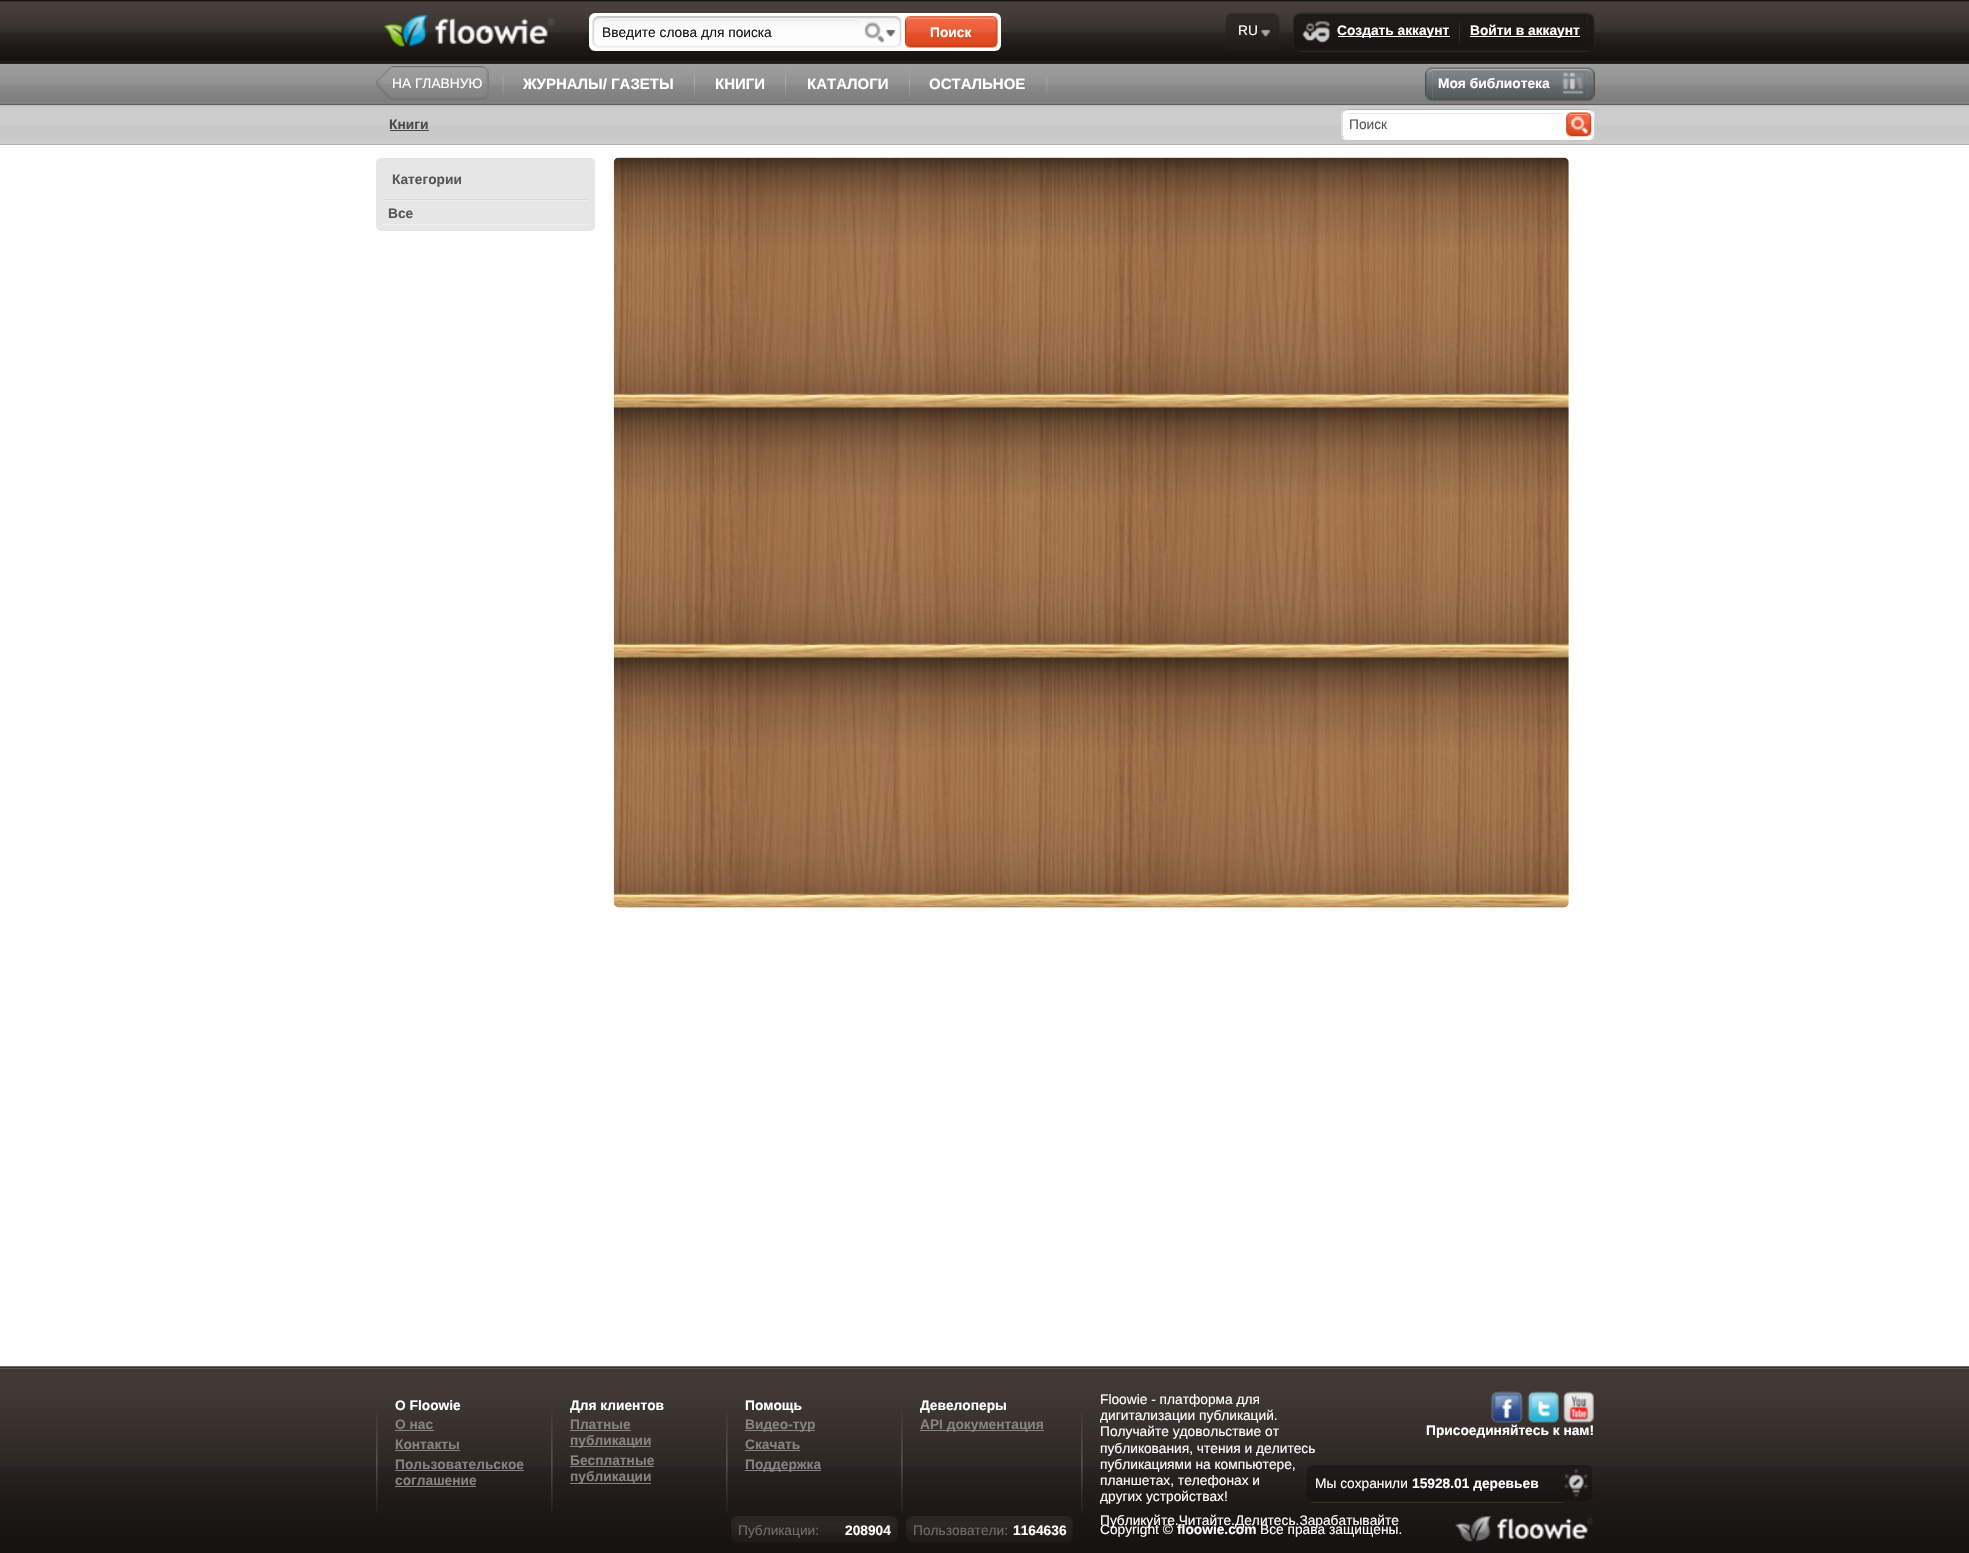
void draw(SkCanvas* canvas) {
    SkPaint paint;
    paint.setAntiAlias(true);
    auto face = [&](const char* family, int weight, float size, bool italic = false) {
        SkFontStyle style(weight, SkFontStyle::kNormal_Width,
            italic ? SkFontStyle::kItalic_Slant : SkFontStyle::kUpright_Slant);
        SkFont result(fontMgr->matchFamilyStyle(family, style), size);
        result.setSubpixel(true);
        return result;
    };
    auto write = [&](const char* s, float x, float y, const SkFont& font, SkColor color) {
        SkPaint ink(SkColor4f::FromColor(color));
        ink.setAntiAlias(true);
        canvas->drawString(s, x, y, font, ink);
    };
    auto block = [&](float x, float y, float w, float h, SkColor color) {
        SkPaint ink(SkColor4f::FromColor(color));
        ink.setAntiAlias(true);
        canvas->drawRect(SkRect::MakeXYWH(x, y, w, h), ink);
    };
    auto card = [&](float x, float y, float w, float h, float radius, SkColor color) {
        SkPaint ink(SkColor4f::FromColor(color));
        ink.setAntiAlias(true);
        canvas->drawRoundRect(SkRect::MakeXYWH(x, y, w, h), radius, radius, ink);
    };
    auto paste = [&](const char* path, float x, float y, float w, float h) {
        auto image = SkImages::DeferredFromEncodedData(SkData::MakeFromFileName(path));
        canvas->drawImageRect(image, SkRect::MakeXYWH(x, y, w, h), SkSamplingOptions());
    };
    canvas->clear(SK_ColorWHITE);
    paste("pic1.png", 0, 0, 1969, 105);
    paste("pic2.png", 383, 14, 172, 33);
    card(589, 13, 412, 38, 6, SK_ColorWHITE);
    paste("pic3.png", 592, 16, 310, 32);
    paint.setColor(SkColorSetRGB(233, 233, 233));
    canvas->drawPath(SkPathBuilder().moveTo(608, 21).lineTo(854, 21).cubicTo(857, 21, 859, 23, 859, 26).lineTo(859, 25).cubicTo(859, 22, 857, 20, 854, 20).lineTo(608, 20).cubicTo(606, 20, 604, 21, 604, 23).cubicTo(605, 22, 606, 21, 608, 21).close().detach(), paint);
    auto kFont1 = face("Liberation Sans", 400, 13.75f);
    write("Введите слова для поиска", 602, 37, kFont1, SkColorSetRGB(27, 23, 22));
    paste("pic4.png", 905, 16, 93, 32);
    auto kFont2 = face("Liberation Sans", 700, 13.75f);
    write("Поиск", 930, 37, kFont2, SK_ColorWHITE);
    paste("pic5.png", 1225, 12, 55, 38);
    write("RU", 1238, 35, kFont1, SK_ColorWHITE);
    paste("pic6.png", 1292, 12, 8, 38);
    paste("pic7.png", 1300, 12, 288, 40);
    paste("pic8.png", 1302, 21, 28, 22);
    block(1338, 36, 112, 1, SK_ColorWHITE);
    write("Создать аккаунт", 1337, 35, kFont2, SK_ColorWHITE);
    paste("pic9.png", 1459, 19, 1, 27);
    block(1470, 36, 110, 1, SK_ColorWHITE);
    write("Войти в аккаунт", 1470, 35, kFont2, SK_ColorWHITE);
    paste("pic10.png", 1587, 12, 8, 37);
    paste("pic11.png", 376, 66, 17, 34);
    paste("pic12.png", 392, 66, 91, 34);
    write("НА ГЛАВНУЮ", 392, 88, kFont1, SK_ColorWHITE);
    paste("pic13.png", 482, 66, 7, 34);
    paste("pic14.png", 502, 73, 2, 23);
    auto kFont3 = face("Liberation Sans", 700, 15);
    write("ЖУРНАЛЫ/ ГАЗЕТЫ", 523, 89, kFont3, SK_ColorWHITE);
    paste("pic15.png", 694, 71, 1, 27);
    write("КНИГИ", 715, 89, kFont3, SK_ColorWHITE);
    paste("pic15.png", 785, 71, 1, 27);
    write("КАТАЛОГИ", 807, 89, kFont3, SK_ColorWHITE);
    paste("pic15.png", 909, 71, 1, 27);
    write("ОСТАЛЬНОЕ", 929, 89, kFont3, SK_ColorWHITE);
    paste("pic16.png", 1046, 73, 2, 23);
    paste("pic17.png", 1425, 67, 8, 34);
    paste("pic18.png", 1432, 67, 156, 35);
    write("Моя библиотека", 1438, 88, kFont2, SK_ColorWHITE);
    paste("pic19.png", 1562, 72, 22, 22);
    paste("pic20.png", 1587, 67, 8, 34);
    paste("pic21.png", 0, 105, 1969, 40);
    write("Книги", 389, 129, kFont2, SkColorSetRGB(74, 74, 74));
    block(390, 130, 39, 1, SkColorSetRGB(74, 74, 74));
    card(1341, 109, 254, 31, 6, SK_ColorWHITE);
    paint.setStyle(SkPaint::kStroke_Style);
    paint.setStrokeWidth(1.2f);
    paint.setColor(SkColorSetRGB(177, 177, 177));
    canvas->drawPath(SkPathBuilder().moveTo(1343.5f, 111).cubicTo(1344.5f, 110, 1346, 109.5f, 1347.5f, 109.5f).lineTo(1589, 109.5f).cubicTo(1590, 109.5f, 1591.5f, 110, 1592.5f, 111).detach(), paint);
    paint.setColor(SkColorSetRGB(208, 208, 208));
    canvas->drawPath(SkPathBuilder().moveTo(1592.5f, 111).cubicTo(1594, 112, 1594.5f, 113.5f, 1594.5f, 115).lineTo(1594.5f, 134).cubicTo(1594.5f, 135, 1594, 136.5f, 1592.5f, 137.5f).detach(), paint);
    paint.setColor(SkColorSetRGB(250, 250, 250));
    canvas->drawPath(SkPathBuilder().moveTo(1592.5f, 137.5f).cubicTo(1591.5f, 139, 1590, 139.5f, 1589, 139.5f).lineTo(1347.5f, 139.5f).cubicTo(1346, 139.5f, 1344.5f, 139, 1343.5f, 137.5f).detach(), paint);
    paint.setColor(SkColorSetRGB(208, 208, 208));
    canvas->drawPath(SkPathBuilder().moveTo(1343.5f, 137.5f).cubicTo(1342.5f, 136.5f, 1342, 135, 1342, 134).lineTo(1342, 115).cubicTo(1342, 113.5f, 1342.5f, 112, 1343.5f, 111).detach(), paint);
    block(1348, 113, 215, 1, SkColorSetRGB(233, 233, 233));
    write("Поиск", 1349, 129, kFont1, SkColorSetRGB(86, 86, 86));
    paste("pic22.png", 1566, 112, 26, 25);
    card(376, 158, 219, 73, 5, SkColorSetRGB(230, 230, 230));
    block(383, 199, 206, 1, SkColorSetRGB(217, 218, 218));
    write("Категории", 392, 184, kFont2, SkColorSetRGB(86, 86, 86));
    block(383, 200, 206, 1, SkColorSetRGB(239, 239, 239));
    block(383, 224, 206, 1, SkColorSetRGB(239, 239, 239));
    write("Все", 388, 218, kFont2, SkColorSetRGB(86, 86, 86));
    paste("pic23.png", 613, 157, 956, 751);
    paste("pic24.png", 0, 1366, 1969, 187);
    paste("pic25.png", 376, 1410, 2, 103);
    write("О Floowie", 395, 1410, kFont2, SK_ColorWHITE);
    write("О нас", 395, 1429, kFont2, SkColorSetRGB(135, 130, 128));
    block(395, 1430, 39, 1, SkColorSetRGB(135, 130, 128));
    write("Контакты", 395, 1449, kFont2, SkColorSetRGB(135, 130, 128));
    block(395, 1450, 65, 1, SkColorSetRGB(135, 130, 128));
    write("Пользовательское", 395, 1469, kFont2, SkColorSetRGB(135, 130, 128));
    block(395, 1470, 129, 1, SkColorSetRGB(135, 130, 128));
    write("соглашение", 395, 1485, kFont2, SkColorSetRGB(135, 130, 128));
    block(395, 1486, 81, 1, SkColorSetRGB(135, 130, 128));
    paste("pic25.png", 551, 1410, 2, 103);
    write("Для клиентов", 570, 1410, kFont2, SK_ColorWHITE);
    write("Платные", 570, 1429, kFont2, SkColorSetRGB(135, 130, 128));
    block(570, 1430, 61, 1, SkColorSetRGB(135, 130, 128));
    block(570, 1446, 81, 1, SkColorSetRGB(135, 130, 128));
    write("публикации", 570, 1445, kFont2, SkColorSetRGB(135, 130, 128));
    write("Бесплатные", 570, 1465, kFont2, SkColorSetRGB(135, 130, 128));
    block(570, 1466, 84, 1, SkColorSetRGB(135, 130, 128));
    block(570, 1483, 81, 1, SkColorSetRGB(135, 130, 128));
    write("публикации", 570, 1481, kFont2, SkColorSetRGB(135, 130, 128));
    paste("pic25.png", 1081, 1410, 2, 103);
    write("Floowie - платформа для", 1100, 1404, kFont1, SK_ColorWHITE);
    write("дигитализации публикаций.", 1100, 1420, kFont1, SK_ColorWHITE);
    write("Получайте удовольствие от", 1100, 1436, kFont1, SK_ColorWHITE);
    paste("pic26.png", 1491, 1391, 32, 32);
    paste("pic27.png", 1527, 1391, 32, 32);
    paste("pic28.png", 1563, 1391, 31, 32);
    write("Присоединяйтесь к нам!", 1426, 1435, kFont2, SK_ColorWHITE);
    write("публикования, чтения и делитесь", 1100, 1453, kFont1, SK_ColorWHITE);
    write("публикациями на компьютере,", 1100, 1469, kFont1, SK_ColorWHITE);
    write("планшетах, телефонах и", 1100, 1485, kFont1, SK_ColorWHITE);
    paste("pic29.png", 1305, 1465, 6, 36);
    paste("pic30.png", 1311, 1465, 253, 38);
    write("Мы сохранили", 1315, 1488, kFont1, SK_ColorWHITE);
    write("15928.01 деревьев", 1412, 1488, kFont2, SK_ColorWHITE);
    paste("pic31.png", 1564, 1465, 30, 36);
    write("других устройствах!", 1100, 1501, kFont1, SK_ColorWHITE);
    write("Публикуйте.Читайте.Делитесь.Зарабатывайте", 1100, 1525, kFont1, SK_ColorWHITE);
    paste("pic32.png", 731, 1516, 167, 27);
    write("Публикации:", 738, 1535, kFont1, SkColorSetRGB(112, 108, 106));
    write("208904", 845, 1535, kFont2, SK_ColorWHITE);
    paste("pic33.png", 906, 1516, 167, 27);
    write("Пользователи:", 913, 1535, kFont1, SkColorSetRGB(112, 108, 106));
    write("1164636", 1013, 1535, kFont2, SK_ColorWHITE);
    paste("pic34.png", 1455, 1516, 139, 26);
    write("Copyright ©", 1100, 1534, kFont1, SK_ColorWHITE);
    write("floowie.com", 1177, 1534, kFont2, SK_ColorWHITE);
    write("Все права защищены.", 1260, 1534, kFont1, SK_ColorWHITE);
    paste("pic25.png", 726, 1410, 2, 103);
    write("Помощь", 745, 1410, kFont2, SK_ColorWHITE);
    block(745, 1430, 70, 1, SkColorSetRGB(135, 130, 128));
    write("Видео-тур", 745, 1429, kFont2, SkColorSetRGB(135, 130, 128));
    write("Скачать", 745, 1449, kFont2, SkColorSetRGB(135, 130, 128));
    block(745, 1450, 55, 1, SkColorSetRGB(135, 130, 128));
    block(745, 1470, 76, 1, SkColorSetRGB(135, 130, 128));
    write("Поддержка", 745, 1469, kFont2, SkColorSetRGB(135, 130, 128));
    paste("pic25.png", 901, 1410, 2, 103);
    write("Девелоперы", 920, 1410, kFont2, SK_ColorWHITE);
    block(920, 1430, 124, 1, SkColorSetRGB(135, 130, 128));
    write("API документация", 920, 1429, kFont2, SkColorSetRGB(135, 130, 128));
}
